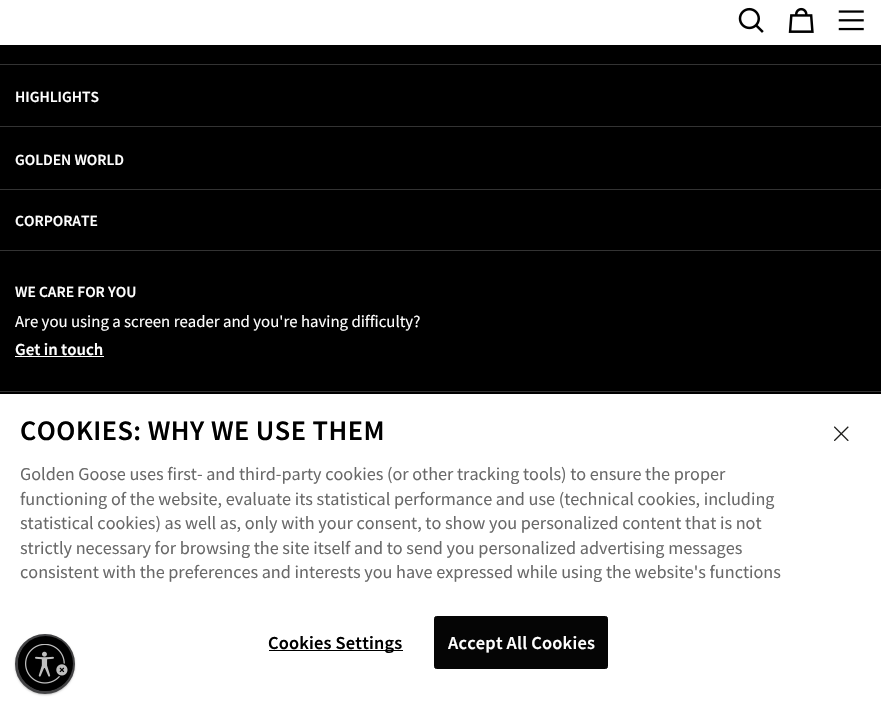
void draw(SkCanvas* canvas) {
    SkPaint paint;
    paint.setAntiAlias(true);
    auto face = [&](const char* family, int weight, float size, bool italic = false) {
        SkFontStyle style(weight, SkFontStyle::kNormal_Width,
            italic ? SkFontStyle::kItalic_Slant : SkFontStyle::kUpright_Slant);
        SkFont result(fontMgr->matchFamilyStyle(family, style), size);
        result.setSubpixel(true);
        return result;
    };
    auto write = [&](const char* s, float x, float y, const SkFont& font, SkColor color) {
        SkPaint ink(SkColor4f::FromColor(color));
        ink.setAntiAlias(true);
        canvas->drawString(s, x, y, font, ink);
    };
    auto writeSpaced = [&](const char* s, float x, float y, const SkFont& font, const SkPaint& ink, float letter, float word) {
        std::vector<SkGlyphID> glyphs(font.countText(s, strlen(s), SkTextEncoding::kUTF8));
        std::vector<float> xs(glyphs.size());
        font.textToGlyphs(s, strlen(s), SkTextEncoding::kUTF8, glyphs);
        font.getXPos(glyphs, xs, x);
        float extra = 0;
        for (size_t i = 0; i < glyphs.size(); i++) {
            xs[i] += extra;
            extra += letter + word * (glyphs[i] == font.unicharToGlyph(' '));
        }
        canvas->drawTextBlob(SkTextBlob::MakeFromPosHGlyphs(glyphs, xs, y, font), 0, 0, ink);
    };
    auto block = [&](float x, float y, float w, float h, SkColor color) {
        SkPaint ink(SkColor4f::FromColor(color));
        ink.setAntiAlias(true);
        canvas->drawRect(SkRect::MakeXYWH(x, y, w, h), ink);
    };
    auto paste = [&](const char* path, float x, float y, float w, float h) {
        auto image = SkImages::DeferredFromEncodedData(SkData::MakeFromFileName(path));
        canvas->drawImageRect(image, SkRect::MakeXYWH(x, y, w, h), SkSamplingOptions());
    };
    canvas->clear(SK_ColorBLACK);
    block(0, 0, 881, 45, SK_ColorWHITE);
    paste("pic1.png", 738, 7, 26, 26);
    paste("pic2.png", 788, 7, 26, 26);
    paste("pic3.png", 838, 10, 26, 21);
    block(0, 391, 881, 1, SkColorSetRGB(51, 51, 51));
    block(0, 64, 881, 1, SkColorSetRGB(51, 51, 51));
    paint.setStyle(SkPaint::kStroke_Style);
    paint.setStrokeWidth(1.2f);
    paint.setColor(SK_ColorBLACK);
    paint.setPathEffect(SkDashPathEffect::Make({{3.75f, 2.51f}}, 0));
    canvas->drawPath(SkPathBuilder().moveTo(0, 65.5f).lineTo(881, 65.5f).detach(), paint);
    paint.setPathEffect(nullptr);
    auto kFont1 = face("Noto Sans SC", 600, 13.75f);
    write("HIGHLIGHTS", 15, 102, kFont1, SK_ColorWHITE);
    block(0, 126, 881, 1, SkColorSetRGB(51, 51, 51));
    write("GOLDEN WORLD", 15, 165, kFont1, SK_ColorWHITE);
    block(0, 189, 881, 1, SkColorSetRGB(51, 51, 51));
    write("CORPORATE", 15, 226, kFont1, SK_ColorWHITE);
    block(0, 250, 881, 1, SkColorSetRGB(51, 51, 51));
    write("WE CARE FOR YOU", 15, 297, kFont1, SK_ColorWHITE);
    auto kFont2 = face("Noto Sans SC", 400, 15);
    write("Are you using a screen reader and you're having difficulty?", 15, 327, kFont2, SK_ColorWHITE);
    auto kFont3 = face("Noto Sans SC", 600, 15);
    write("Get in touch", 15, 355, kFont3, SK_ColorWHITE);
    block(15, 356, 89, 1, SK_ColorWHITE);
    block(0, 394, 881, 314, SK_ColorWHITE);
    auto kFont4 = face("Noto Sans SC", 600, 25);
    paint.setStyle(SkPaint::kFill_Style);
    writeSpaced("COOKIES: WHY WE USE THEM", 20, 440, kFont4, paint, 0.5f, 0);
    auto kFont5 = face("Noto Sans SC", 400, 16.25f);
    write("Golden Goose uses first- and third-party cookies (or other tracking tools) to ensure the proper", 20, 480, kFont5, SkColorSetRGB(105, 105, 105));
    write("functioning of the website, evaluate its statistical performance and use (technical cookies, including", 20, 505, kFont5, SkColorSetRGB(105, 105, 105));
    write("statistical cookies) as well as, only with your consent, to show you personalized content that is not", 20, 529, kFont5, SkColorSetRGB(105, 105, 105));
    write("strictly necessary for browsing the site itself and to send you personalized advertising messages", 20, 554, kFont5, SkColorSetRGB(105, 105, 105));
    write("consistent with the preferences and interests you have expressed while using the website's functions", 20, 578, kFont5, SkColorSetRGB(105, 105, 105));
    block(269, 650, 134, 1, SK_ColorBLACK);
    auto kFont6 = face("Noto Sans SC", 600, 16.25f);
    writeSpaced("Cookies Settings", 268, 649, kFont6, paint, 0.2f, 0);
    paint.setColor(SkColorSetRGB(5, 5, 5));
    canvas->drawRoundRect(SkRect::MakeXYWH(434.5f, 616.5f, 173, 52), 2, 2, paint);
    paint.setStyle(SkPaint::kStroke_Style);
    paint.setStrokeWidth(1);
    canvas->drawRoundRect(SkRect::MakeXYWH(434.5f, 616.5f, 173, 52), 2, 2, paint);
    paint.setStyle(SkPaint::kFill_Style);
    paint.setColor(SK_ColorWHITE);
    writeSpaced("Accept All Cookies", 448, 649, kFont6, paint, 0.2f, 0);
    paste("pic4.png", 834, 426, 15, 15);
    paint.setColor(SkColorSetARGB(61, 0, 0, 0));
    paint.setMaskFilter(SkMaskFilter::MakeBlur(kNormal_SkBlurStyle, 1));
    canvas->drawRoundRect(SkRect::MakeXYWH(15, 635, 60, 60), 30, 30, paint);
    paint.setMaskFilter(nullptr);
    paint.setColor(SK_ColorBLACK);
    canvas->drawCircle(45, 664, 28.5f, paint);
    paint.setStyle(SkPaint::kStroke_Style);
    paint.setStrokeWidth(3);
    paint.setColor(SkColorSetRGB(68, 68, 70));
    canvas->drawCircle(45, 664, 28.5f, paint);
    canvas->save();
    canvas->clipPath(SkPathBuilder().moveTo(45.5f, 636).cubicTo(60.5f, 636, 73, 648.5f, 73, 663.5f).cubicTo(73, 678.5f, 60.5f, 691, 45.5f, 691).cubicTo(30.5f, 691, 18, 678.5f, 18, 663.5f).cubicTo(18, 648.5f, 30.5f, 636, 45.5f, 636).close().detach(), true);
    paint.setStyle(SkPaint::kFill_Style);
    paint.setColor(SkColorSetARGB(61, 0, 0, 0));
    paint.setMaskFilter(SkMaskFilter::MakeBlur(kNormal_SkBlurStyle, 1));
    canvas->drawRoundRect(SkRect::MakeXYWH(18, 638, 55, 55), 27.5f, 27.5f, paint);
    paint.setMaskFilter(nullptr);
    canvas->restore();
    paint.setColor(SK_ColorBLACK);
    canvas->drawCircle(45.5f, 663.5f, 27.5f, paint);
    paste("pic5.png", 25, 644, 43, 40);
}
